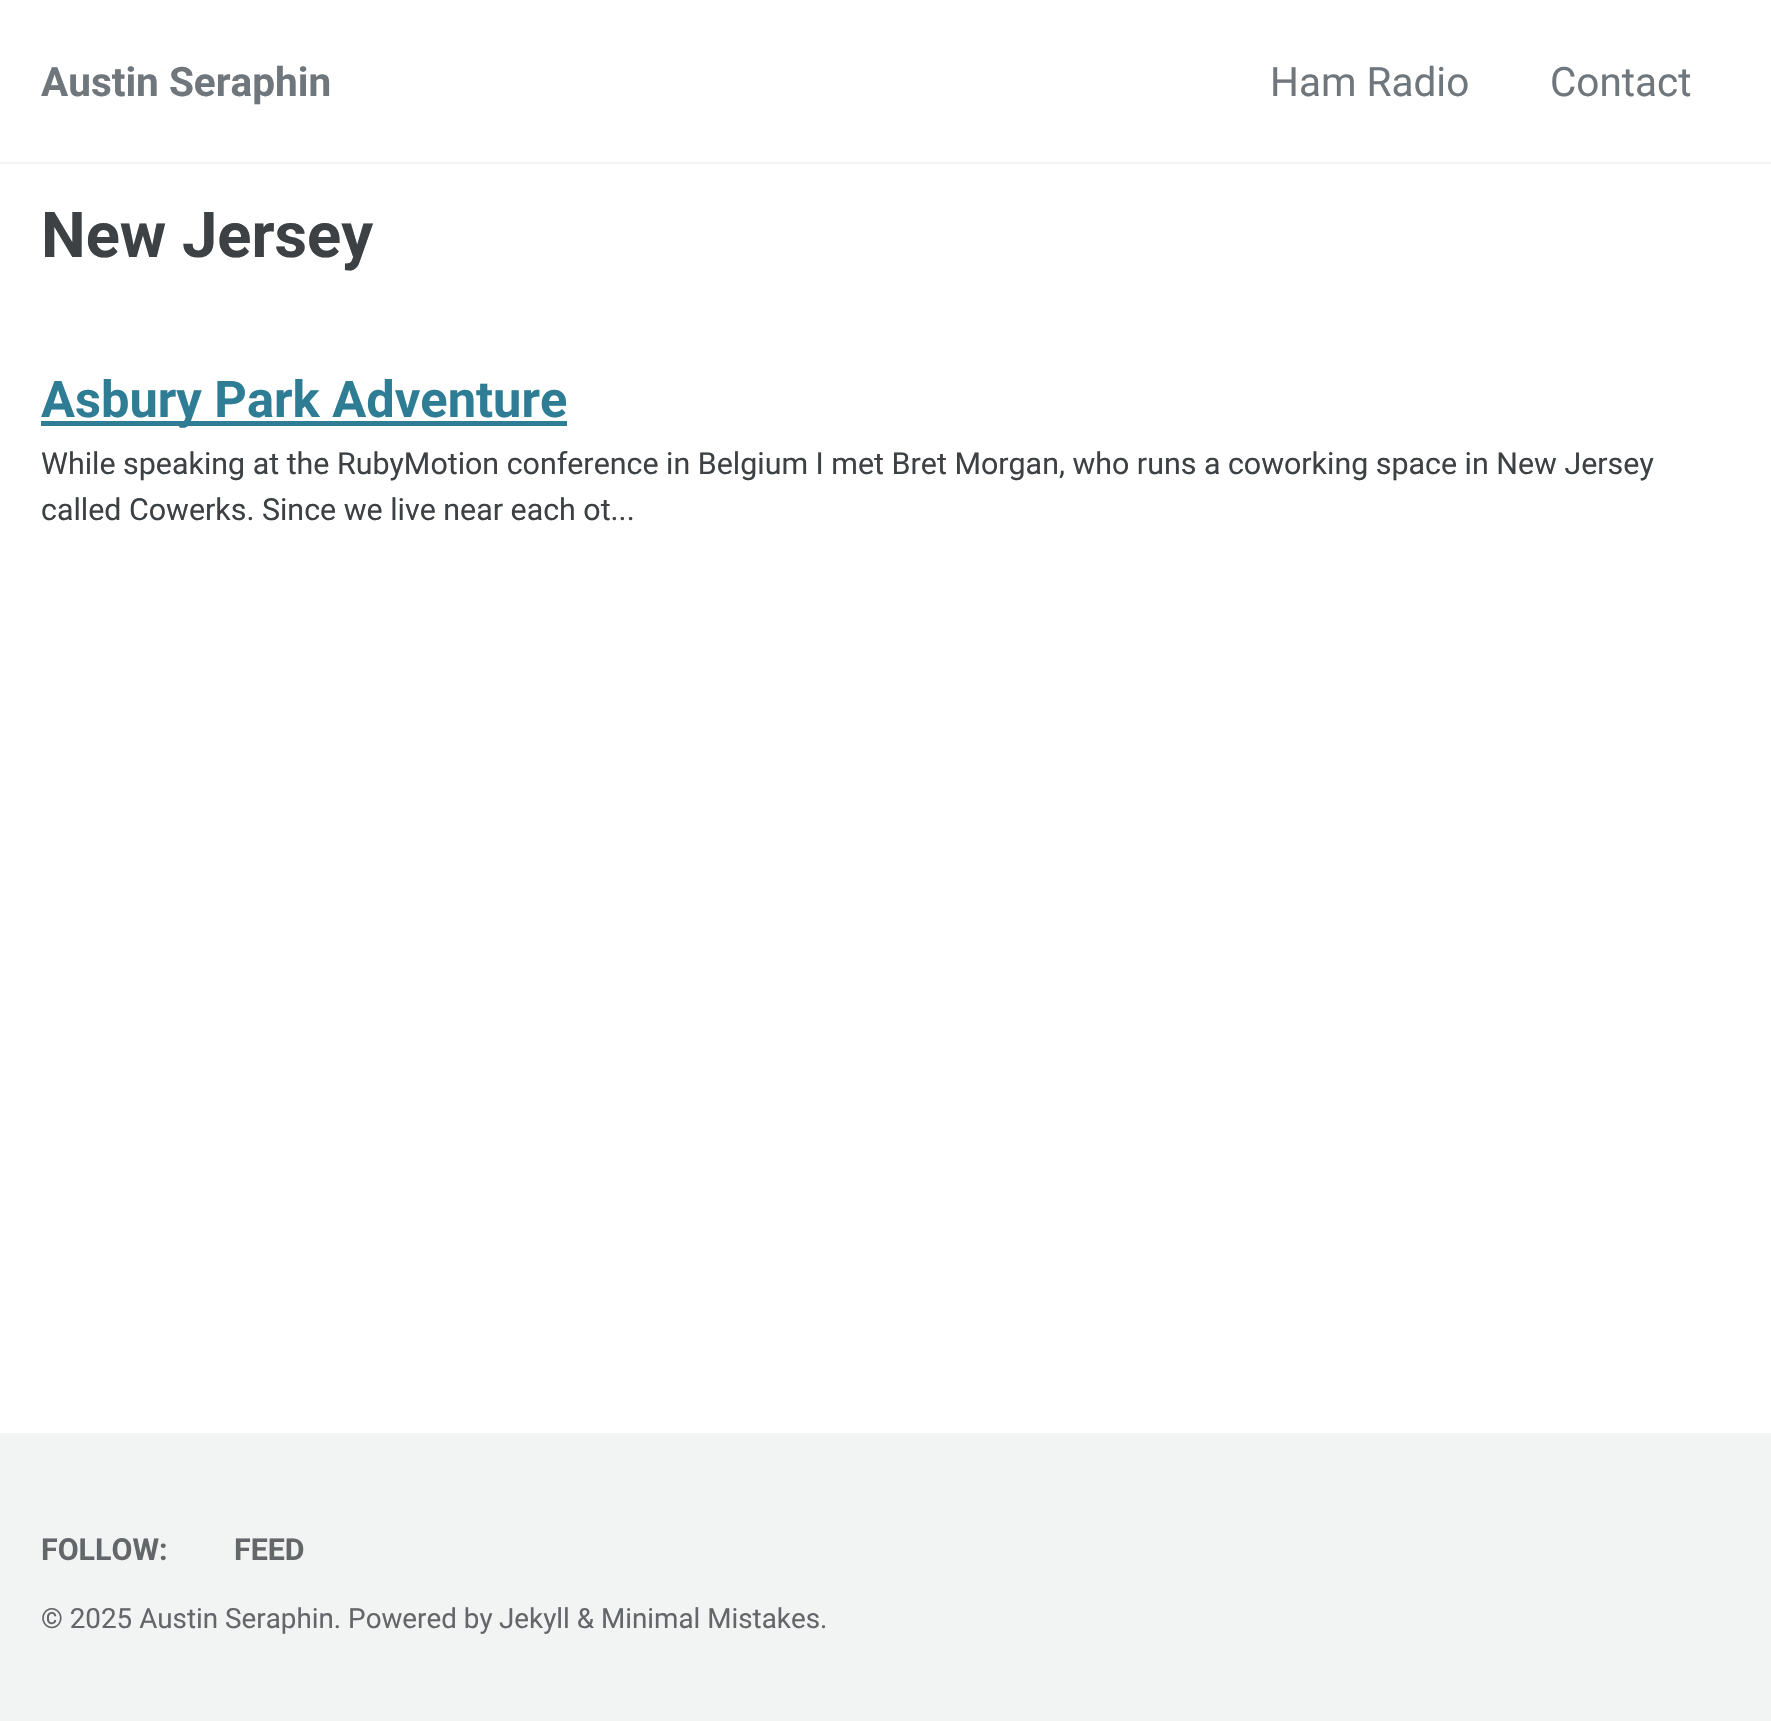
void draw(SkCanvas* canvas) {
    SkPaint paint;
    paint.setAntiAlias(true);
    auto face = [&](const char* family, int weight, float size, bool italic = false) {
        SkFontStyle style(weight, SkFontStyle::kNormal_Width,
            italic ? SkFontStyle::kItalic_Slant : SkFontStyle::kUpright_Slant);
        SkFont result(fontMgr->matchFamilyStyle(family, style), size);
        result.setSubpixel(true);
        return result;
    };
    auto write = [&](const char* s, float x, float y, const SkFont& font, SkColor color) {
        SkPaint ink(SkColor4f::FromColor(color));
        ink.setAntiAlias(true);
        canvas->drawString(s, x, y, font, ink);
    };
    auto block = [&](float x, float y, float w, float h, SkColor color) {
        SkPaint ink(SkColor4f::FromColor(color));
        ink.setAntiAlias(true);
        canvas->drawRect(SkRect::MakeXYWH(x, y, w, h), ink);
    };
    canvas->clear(SK_ColorWHITE);
    block(0, 162, 1771, 2, SkColorSetRGB(242, 243, 243));
    auto kFont1 = face("Roboto", 700, 40.5f);
    write("Austin Seraphin", 41, 96, kFont1, SkColorSetRGB(111, 119, 125));
    auto kFont2 = face("Roboto", 400, 40.5f);
    write("Ham Radio", 1270, 96, kFont2, SkColorSetRGB(111, 119, 125));
    write("Contact", 1550, 96, kFont2, SkColorSetRGB(111, 119, 125));
    auto kFont3 = face("Roboto", 700, 63.25f);
    write("New Jersey", 41, 257, kFont3, SkColorSetRGB(61, 65, 68));
    block(41, 421, 526, 5, SkColorSetRGB(47, 125, 149));
    auto kFont4 = face("Roboto", 700, 50.6f);
    write("Asbury Park Adventure", 41, 417, kFont4, SkColorSetRGB(47, 125, 149));
    auto kFont5 = face("Roboto", 400, 30.38f);
    write("While speaking at the RubyMotion conference in Belgium I met Bret Morgan, who runs a coworking space in New Jersey", 41, 474, kFont5, SkColorSetRGB(61, 65, 68));
    write("called Cowerks. Since we live near each ot...", 41, 520, kFont5, SkColorSetRGB(61, 65, 68));
    block(0, 1433, 1771, 288, SkColorSetRGB(242, 243, 243));
    auto kFont6 = face("Roboto", 700, 30.38f);
    write("FOLLOW:", 41, 1560, kFont6, SkColorSetRGB(100, 103, 105));
    write("FEED", 234, 1560, kFont6, SkColorSetRGB(100, 103, 105));
    auto kFont7 = face("Roboto", 400, 27.8f);
    write("© 2025 Austin Seraphin. Powered by", 41, 1628, kFont7, SkColorSetRGB(100, 103, 105));
    write("Jekyll & Minimal Mistakes.", 499, 1628, kFont7, SkColorSetRGB(100, 103, 105));
}
